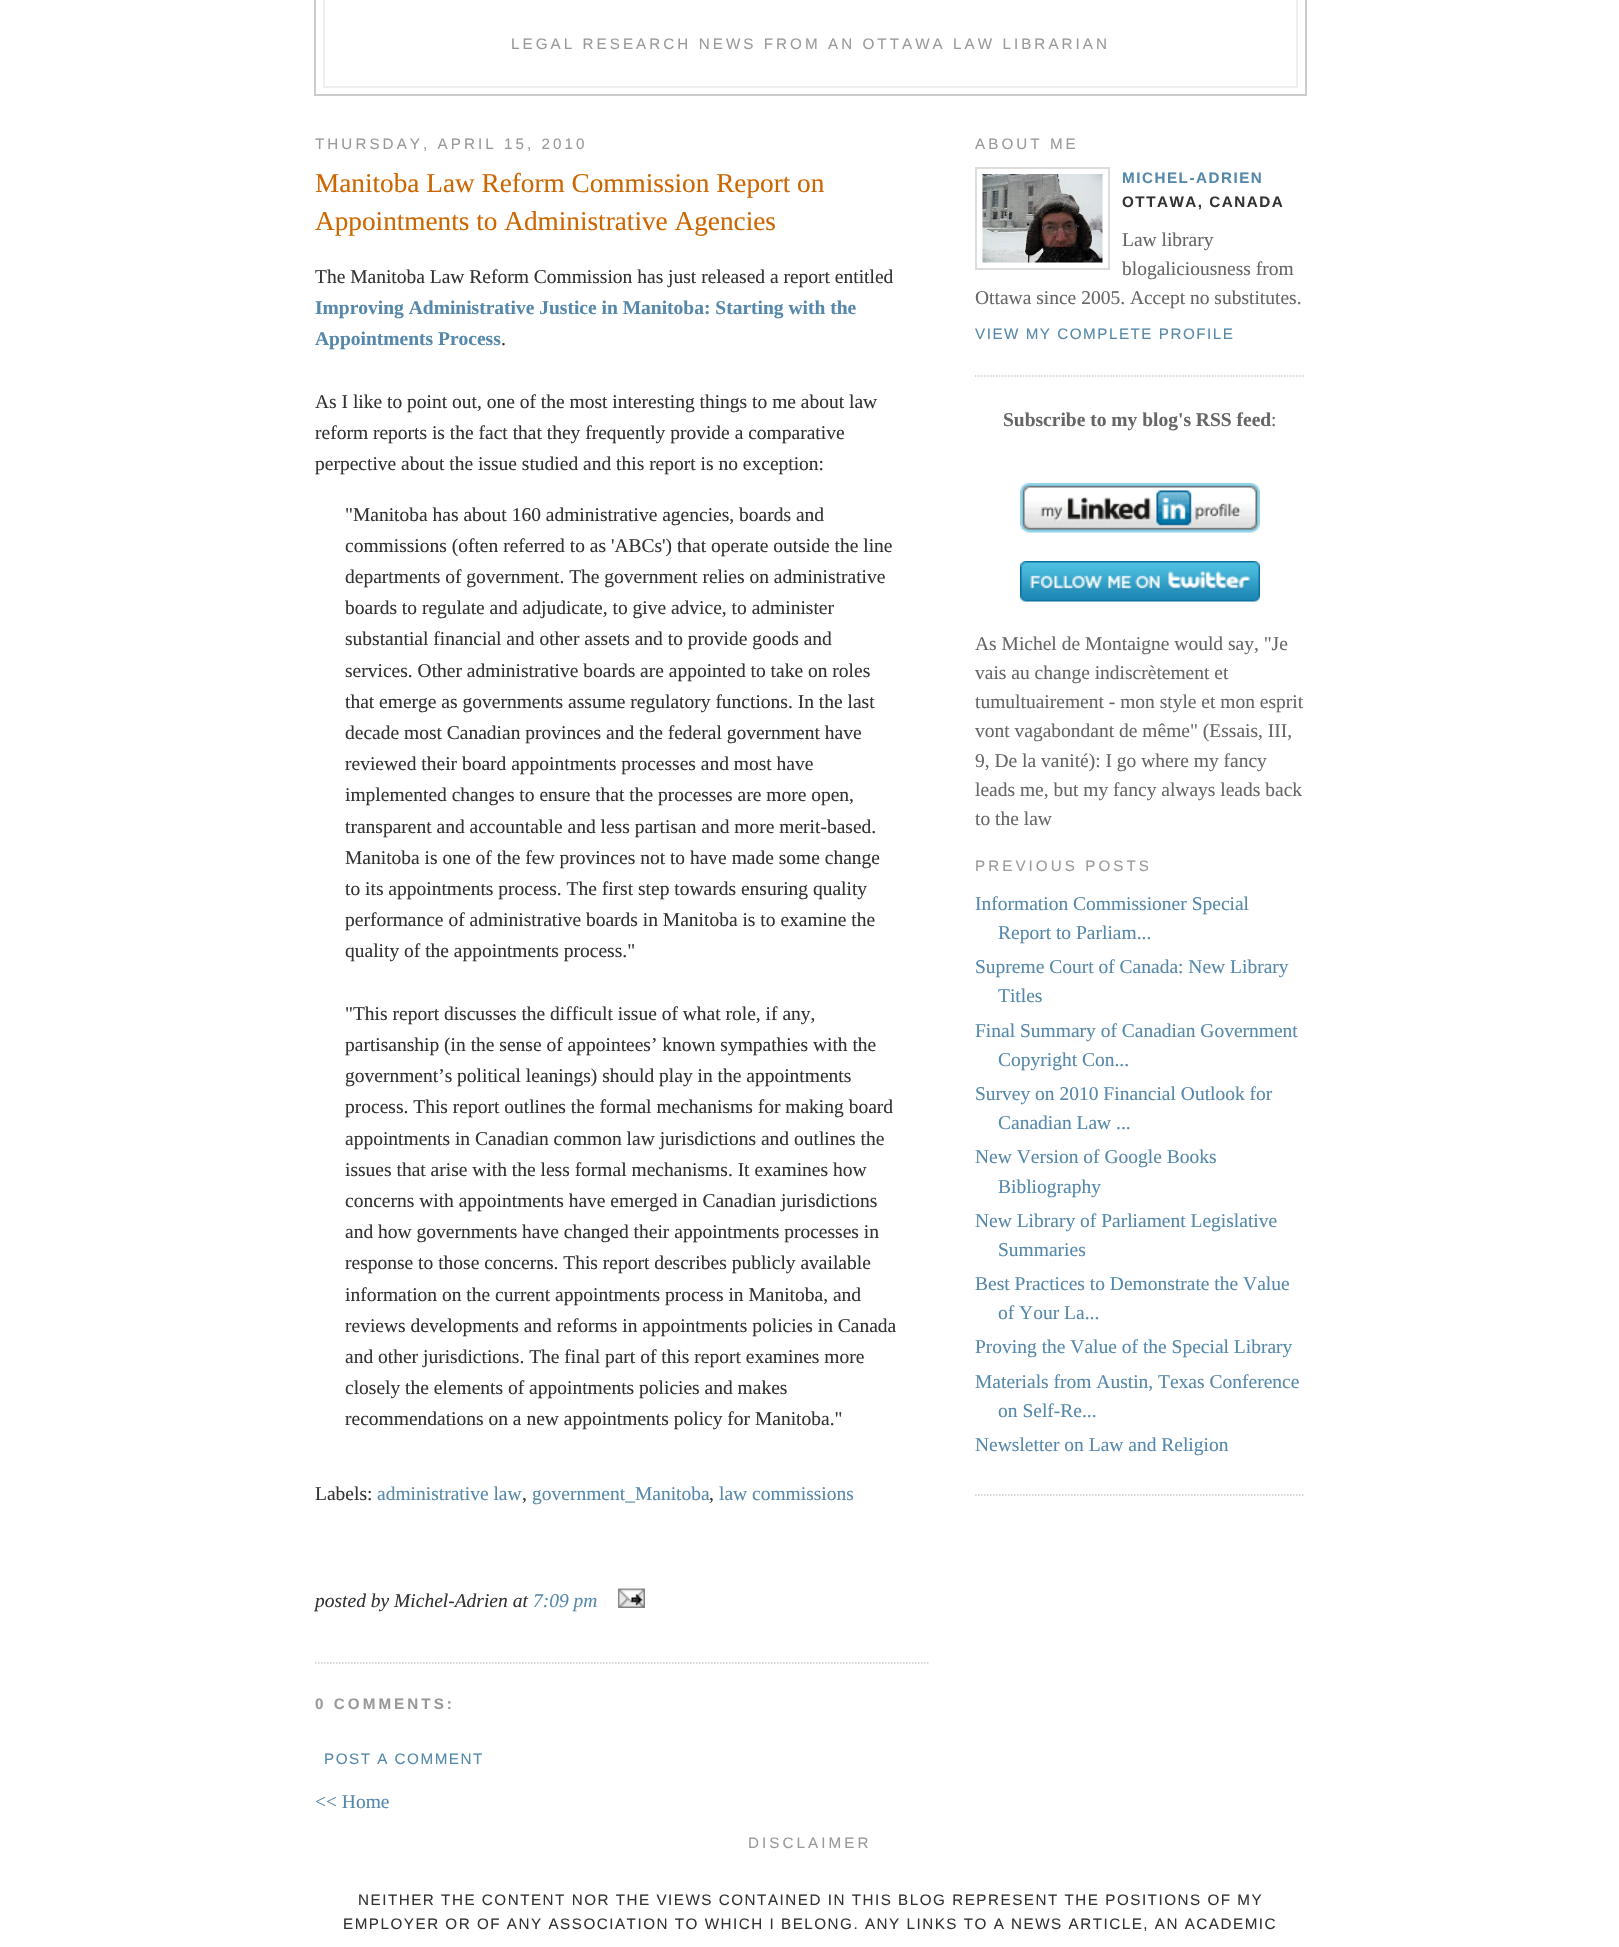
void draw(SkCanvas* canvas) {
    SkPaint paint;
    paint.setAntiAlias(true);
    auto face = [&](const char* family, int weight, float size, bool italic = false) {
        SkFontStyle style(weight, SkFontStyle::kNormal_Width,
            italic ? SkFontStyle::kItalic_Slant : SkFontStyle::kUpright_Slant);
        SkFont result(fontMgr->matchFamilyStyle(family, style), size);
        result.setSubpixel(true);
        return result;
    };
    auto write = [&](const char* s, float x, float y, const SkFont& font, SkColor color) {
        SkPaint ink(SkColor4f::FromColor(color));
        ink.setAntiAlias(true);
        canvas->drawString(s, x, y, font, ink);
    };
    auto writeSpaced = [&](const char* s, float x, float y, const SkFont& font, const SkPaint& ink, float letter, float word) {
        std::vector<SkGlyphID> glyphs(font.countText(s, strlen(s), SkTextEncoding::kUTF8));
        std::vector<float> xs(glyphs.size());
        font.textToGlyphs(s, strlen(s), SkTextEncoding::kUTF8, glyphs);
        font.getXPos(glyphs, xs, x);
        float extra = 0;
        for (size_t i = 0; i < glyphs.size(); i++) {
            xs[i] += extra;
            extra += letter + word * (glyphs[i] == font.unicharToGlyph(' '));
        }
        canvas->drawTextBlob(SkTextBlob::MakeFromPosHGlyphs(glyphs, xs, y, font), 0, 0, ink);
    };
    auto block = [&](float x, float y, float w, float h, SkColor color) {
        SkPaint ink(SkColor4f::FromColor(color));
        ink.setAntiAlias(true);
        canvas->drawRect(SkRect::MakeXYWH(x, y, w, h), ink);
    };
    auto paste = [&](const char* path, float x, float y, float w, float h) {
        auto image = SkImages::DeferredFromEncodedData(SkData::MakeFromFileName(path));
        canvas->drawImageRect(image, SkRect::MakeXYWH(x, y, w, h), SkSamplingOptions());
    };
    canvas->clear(SK_ColorWHITE);
    paint.setStyle(SkPaint::kStroke_Style);
    paint.setStrokeWidth(2);
    paint.setColor(SkColorSetRGB(204, 204, 204));
    canvas->drawRect(SkRect::MakeXYWH(315, -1, 991, 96), paint);
    block(1296, 0, 2, 87, SkColorSetRGB(238, 238, 238));
    block(323, 0, 2, 35, SkColorSetRGB(238, 238, 238));
    block(323, 86, 975, 2, SkColorSetRGB(238, 238, 238));
    block(323, 35, 2, 52, SkColorSetRGB(238, 238, 238));
    auto kFont1 = face("Liberation Sans", 400, 15.2f);
    paint.setStyle(SkPaint::kFill_Style);
    paint.setColor(SkColorSetRGB(153, 153, 153));
    writeSpaced("LEGAL RESEARCH NEWS FROM AN OTTAWA LAW LIBRARIAN", 511, 49, kFont1, paint, 3.05f, 0);
    writeSpaced("THURSDAY, APRIL 15, 2010", 315, 149, kFont1, paint, 3.05f, 0);
    paint.setStyle(SkPaint::kStroke_Style);
    paint.setStrokeWidth(1.5f);
    paint.setColor(SkColorSetRGB(204, 204, 204));
    paint.setPathEffect(SkDashPathEffect::Make({{1.5f, 1.5f}}, 0));
    canvas->drawPath(SkPathBuilder().moveTo(315, 1663).lineTo(930, 1663).detach(), paint);
    paint.setPathEffect(nullptr);
    auto kFont2 = face("Liberation Serif", 400, 27.25f);
    write("Manitoba Law Reform Commission Report on", 315, 192, kFont2, SkColorSetRGB(204, 102, 0));
    write("Appointments to Administrative Agencies", 315, 230, kFont2, SkColorSetRGB(204, 102, 0));
    auto kFont3 = face("Liberation Serif", 400, 19.5f);
    write("The Manitoba Law Reform Commission has just released a report entitled", 315, 283, kFont3, SkColorSetRGB(51, 51, 51));
    auto kFont4 = face("Liberation Serif", 700, 19.5f);
    write("Improving Administrative Justice in Manitoba: Starting with the", 315, 314, kFont4, SkColorSetRGB(85, 136, 170));
    write("Appointments Process", 315, 345, kFont4, SkColorSetRGB(85, 136, 170));
    write(".", 501, 345, kFont3, SkColorSetRGB(51, 51, 51));
    write("As I like to point out, one of the most interesting things to me about law", 315, 408, kFont3, SkColorSetRGB(51, 51, 51));
    write("reform reports is the fact that they frequently provide a comparative", 315, 439, kFont3, SkColorSetRGB(51, 51, 51));
    write("perpective about the issue studied and this report is no exception:", 315, 470, kFont3, SkColorSetRGB(51, 51, 51));
    write("\"Manitoba has about 160 administrative agencies, boards and", 345, 521, kFont3, SkColorSetRGB(51, 51, 51));
    write("commissions (often referred to as 'ABCs') that operate outside the line", 345, 552, kFont3, SkColorSetRGB(51, 51, 51));
    write("departments of government. The government relies on administrative", 345, 583, kFont3, SkColorSetRGB(51, 51, 51));
    write("boards to regulate and adjudicate, to give advice, to administer", 345, 614, kFont3, SkColorSetRGB(51, 51, 51));
    write("substantial financial and other assets and to provide goods and", 345, 645, kFont3, SkColorSetRGB(51, 51, 51));
    write("services. Other administrative boards are appointed to take on roles", 345, 677, kFont3, SkColorSetRGB(51, 51, 51));
    write("that emerge as governments assume regulatory functions. In the last", 345, 708, kFont3, SkColorSetRGB(51, 51, 51));
    write("decade most Canadian provinces and the federal government have", 345, 739, kFont3, SkColorSetRGB(51, 51, 51));
    write("reviewed their board appointments processes and most have", 345, 770, kFont3, SkColorSetRGB(51, 51, 51));
    write("implemented changes to ensure that the processes are more open,", 345, 801, kFont3, SkColorSetRGB(51, 51, 51));
    write("transparent and accountable and less partisan and more merit-based.", 345, 833, kFont3, SkColorSetRGB(51, 51, 51));
    write("Manitoba is one of the few provinces not to have made some change", 345, 864, kFont3, SkColorSetRGB(51, 51, 51));
    write("to its appointments process. The first step towards ensuring quality", 345, 895, kFont3, SkColorSetRGB(51, 51, 51));
    write("performance of administrative boards in Manitoba is to examine the", 345, 926, kFont3, SkColorSetRGB(51, 51, 51));
    write("quality of the appointments process.\"", 345, 957, kFont3, SkColorSetRGB(51, 51, 51));
    write("\"This report discusses the difficult issue of what role, if any,", 345, 1020, kFont3, SkColorSetRGB(51, 51, 51));
    write("partisanship (in the sense of appointees’ known sympathies with the", 345, 1051, kFont3, SkColorSetRGB(51, 51, 51));
    write("government’s political leanings) should play in the appointments", 345, 1082, kFont3, SkColorSetRGB(51, 51, 51));
    write("process. This report outlines the formal mechanisms for making board", 345, 1113, kFont3, SkColorSetRGB(51, 51, 51));
    write("appointments in Canadian common law jurisdictions and outlines the", 345, 1145, kFont3, SkColorSetRGB(51, 51, 51));
    write("issues that arise with the less formal mechanisms. It examines how", 345, 1176, kFont3, SkColorSetRGB(51, 51, 51));
    write("concerns with appointments have emerged in Canadian jurisdictions", 345, 1207, kFont3, SkColorSetRGB(51, 51, 51));
    write("and how governments have changed their appointments processes in", 345, 1238, kFont3, SkColorSetRGB(51, 51, 51));
    write("response to those concerns. This report describes publicly available", 345, 1269, kFont3, SkColorSetRGB(51, 51, 51));
    write("information on the current appointments process in Manitoba, and", 345, 1301, kFont3, SkColorSetRGB(51, 51, 51));
    write("reviews developments and reforms in appointments policies in Canada", 345, 1332, kFont3, SkColorSetRGB(51, 51, 51));
    write("and other jurisdictions. The final part of this report examines more", 345, 1363, kFont3, SkColorSetRGB(51, 51, 51));
    write("closely the elements of appointments policies and makes", 345, 1394, kFont3, SkColorSetRGB(51, 51, 51));
    write("recommendations on a new appointments policy for Manitoba.\"", 345, 1425, kFont3, SkColorSetRGB(51, 51, 51));
    write("Labels:", 315, 1500, kFont3, SkColorSetRGB(51, 51, 51));
    write("administrative law", 377, 1500, kFont3, SkColorSetRGB(85, 136, 170));
    write(",", 522, 1500, kFont3, SkColorSetRGB(51, 51, 51));
    write("government_Manitoba", 532, 1500, kFont3, SkColorSetRGB(85, 136, 170));
    write(",", 709, 1500, kFont3, SkColorSetRGB(51, 51, 51));
    write("law commissions", 719, 1500, kFont3, SkColorSetRGB(85, 136, 170));
    auto kFont5 = face("Liberation Serif", 400, 19.5f, true);
    write("posted by Michel-Adrien at", 315, 1607, kFont5, SkColorSetRGB(51, 51, 51));
    write("7:09 pm", 533, 1607, kFont5, SkColorSetRGB(85, 136, 170));
    paste("pic1.png", 618, 1588, 27, 20);
    auto kFont6 = face("Liberation Sans", 700, 15.2f);
    paint.setStyle(SkPaint::kFill_Style);
    paint.setColor(SkColorSetRGB(153, 153, 153));
    writeSpaced("0 COMMENTS:", 315, 1709, kFont6, paint, 3.05f, 0);
    paint.setColor(SkColorSetRGB(85, 136, 170));
    writeSpaced("POST A COMMENT", 324, 1764, kFont1, paint, 1.52f, 0);
    write("<< Home", 315, 1808, kFont3, SkColorSetRGB(85, 136, 170));
    paint.setStyle(SkPaint::kStroke_Style);
    paint.setColor(SkColorSetRGB(204, 204, 204));
    paint.setPathEffect(SkDashPathEffect::Make({{1.5f, 1.5f}}, 0));
    canvas->drawPath(SkPathBuilder().moveTo(975, 376).lineTo(1305, 376).detach(), paint);
    paint.setPathEffect(nullptr);
    paint.setStyle(SkPaint::kFill_Style);
    paint.setColor(SkColorSetRGB(153, 153, 153));
    writeSpaced("ABOUT ME", 975, 149, kFont1, paint, 3.05f, 0);
    paint.setStyle(SkPaint::kStroke_Style);
    paint.setStrokeWidth(2);
    paint.setColor(SkColorSetRGB(221, 221, 221));
    canvas->drawRect(SkRect::MakeXYWH(976, 168, 133, 101), paint);
    paste("pic2.png", 982, 174, 121, 89);
    paint.setStyle(SkPaint::kFill_Style);
    paint.setColor(SkColorSetRGB(85, 136, 170));
    writeSpaced("MICHEL-ADRIEN", 1122, 183, kFont6, paint, 1.52f, 0);
    paint.setColor(SkColorSetRGB(51, 51, 51));
    writeSpaced("OTTAWA, CANADA", 1122, 207, kFont6, paint, 1.52f, 0);
    write("Law library", 1122, 246, kFont3, SkColorSetRGB(102, 102, 102));
    write("blogaliciousness from", 1122, 275, kFont3, SkColorSetRGB(102, 102, 102));
    write("Ottawa since 2005. Accept no substitutes.", 975, 304, kFont3, SkColorSetRGB(102, 102, 102));
    paint.setColor(SkColorSetRGB(85, 136, 170));
    writeSpaced("VIEW MY COMPLETE PROFILE", 975, 339, kFont1, paint, 1.52f, 0);
    write("Subscribe to my blog's RSS feed", 1003, 426, kFont4, SkColorSetRGB(102, 102, 102));
    write(":", 1271, 426, kFont3, SkColorSetRGB(102, 102, 102));
    paste("pic3.png", 1020, 483, 240, 50);
    paste("pic4.png", 1020, 561, 240, 41);
    write("As Michel de Montaigne would say, \"Je", 975, 650, kFont3, SkColorSetRGB(102, 102, 102));
    write("vais au change indiscrètement et", 975, 679, kFont3, SkColorSetRGB(102, 102, 102));
    write("tumultuairement - mon style et mon esprit", 975, 708, kFont3, SkColorSetRGB(102, 102, 102));
    write("vont vagabondant de même\" (Essais, III,", 975, 737, kFont3, SkColorSetRGB(102, 102, 102));
    write("9, De la vanité): I go where my fancy", 975, 767, kFont3, SkColorSetRGB(102, 102, 102));
    write("leads me, but my fancy always leads back", 975, 796, kFont3, SkColorSetRGB(102, 102, 102));
    write("to the law", 975, 825, kFont3, SkColorSetRGB(102, 102, 102));
    paint.setColor(SkColorSetRGB(153, 153, 153));
    writeSpaced("PREVIOUS POSTS", 975, 871, kFont1, paint, 3.05f, 0);
    paint.setStyle(SkPaint::kStroke_Style);
    paint.setStrokeWidth(1.5f);
    paint.setColor(SkColorSetRGB(204, 204, 204));
    paint.setPathEffect(SkDashPathEffect::Make({{1.5f, 1.5f}}, 0));
    canvas->drawPath(SkPathBuilder().moveTo(975, 1495).lineTo(1305, 1495).detach(), paint);
    paint.setPathEffect(nullptr);
    write("Information Commissioner Special", 975, 910, kFont3, SkColorSetRGB(85, 136, 170));
    write("Report to Parliam...", 998, 939, kFont3, SkColorSetRGB(85, 136, 170));
    write("Supreme Court of Canada: New Library", 975, 973, kFont3, SkColorSetRGB(85, 136, 170));
    write("Titles", 998, 1002, kFont3, SkColorSetRGB(85, 136, 170));
    write("Final Summary of Canadian Government", 975, 1037, kFont3, SkColorSetRGB(85, 136, 170));
    write("Copyright Con...", 998, 1066, kFont3, SkColorSetRGB(85, 136, 170));
    write("Survey on 2010 Financial Outlook for", 975, 1100, kFont3, SkColorSetRGB(85, 136, 170));
    write("Canadian Law ...", 998, 1129, kFont3, SkColorSetRGB(85, 136, 170));
    write("New Version of Google Books", 975, 1163, kFont3, SkColorSetRGB(85, 136, 170));
    write("Bibliography", 998, 1193, kFont3, SkColorSetRGB(85, 136, 170));
    write("New Library of Parliament Legislative", 975, 1227, kFont3, SkColorSetRGB(85, 136, 170));
    write("Summaries", 998, 1256, kFont3, SkColorSetRGB(85, 136, 170));
    write("Best Practices to Demonstrate the Value", 975, 1290, kFont3, SkColorSetRGB(85, 136, 170));
    write("of Your La...", 998, 1319, kFont3, SkColorSetRGB(85, 136, 170));
    write("Proving the Value of the Special Library", 975, 1353, kFont3, SkColorSetRGB(85, 136, 170));
    write("Materials from Austin, Texas Conference", 975, 1388, kFont3, SkColorSetRGB(85, 136, 170));
    write("on Self-Re...", 998, 1417, kFont3, SkColorSetRGB(85, 136, 170));
    write("Newsletter on Law and Religion", 975, 1451, kFont3, SkColorSetRGB(85, 136, 170));
    paint.setStyle(SkPaint::kFill_Style);
    paint.setColor(SkColorSetRGB(153, 153, 153));
    writeSpaced("DISCLAIMER", 748, 1848, kFont1, paint, 3.05f, 0);
    paint.setColor(SkColorSetRGB(51, 51, 51));
    writeSpaced("NEITHER THE CONTENT NOR THE VIEWS CONTAINED IN THIS BLOG REPRESENT THE POSITIONS OF MY", 358, 1905, kFont1, paint, 1.52f, 0);
    writeSpaced("EMPLOYER OR OF ANY ASSOCIATION TO WHICH I BELONG. ANY LINKS TO A NEWS ARTICLE, AN ACADEMIC", 343, 1929, kFont1, paint, 1.52f, 0);
}
